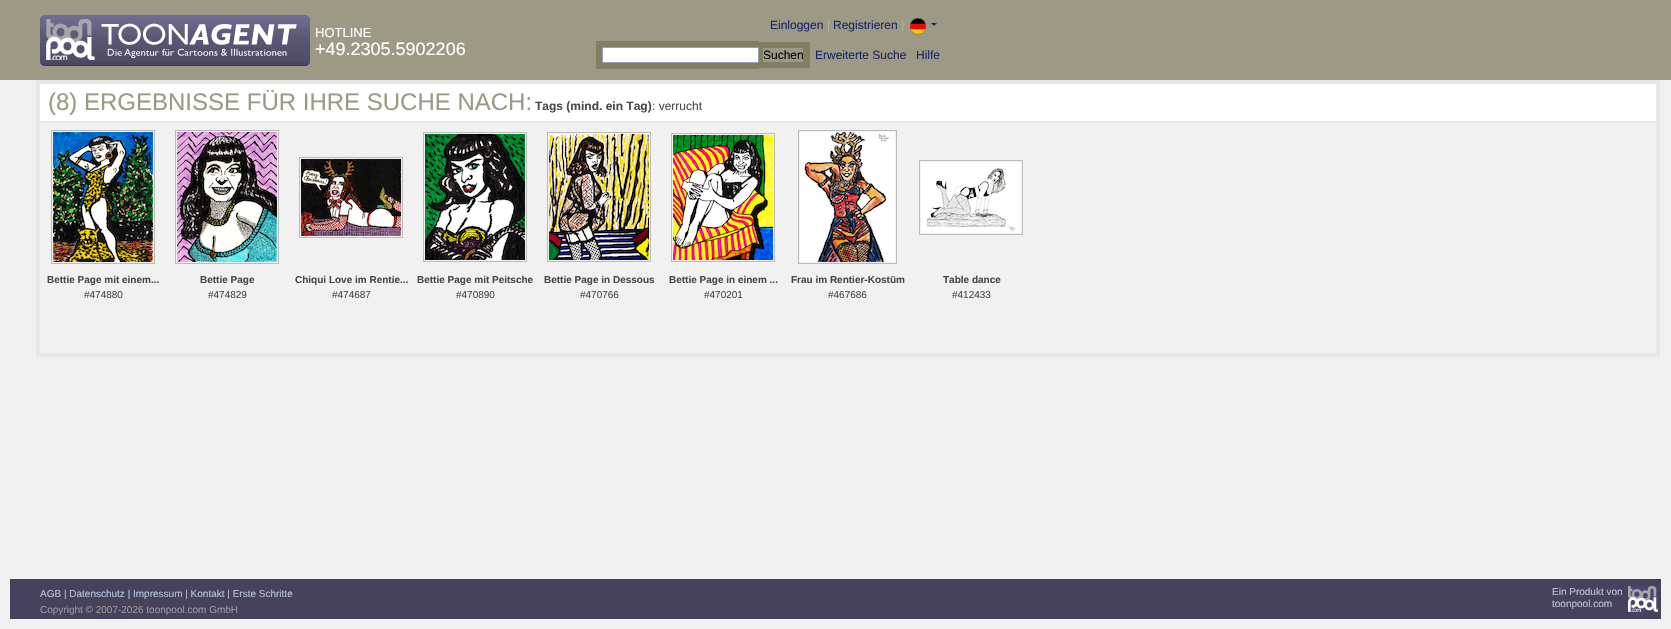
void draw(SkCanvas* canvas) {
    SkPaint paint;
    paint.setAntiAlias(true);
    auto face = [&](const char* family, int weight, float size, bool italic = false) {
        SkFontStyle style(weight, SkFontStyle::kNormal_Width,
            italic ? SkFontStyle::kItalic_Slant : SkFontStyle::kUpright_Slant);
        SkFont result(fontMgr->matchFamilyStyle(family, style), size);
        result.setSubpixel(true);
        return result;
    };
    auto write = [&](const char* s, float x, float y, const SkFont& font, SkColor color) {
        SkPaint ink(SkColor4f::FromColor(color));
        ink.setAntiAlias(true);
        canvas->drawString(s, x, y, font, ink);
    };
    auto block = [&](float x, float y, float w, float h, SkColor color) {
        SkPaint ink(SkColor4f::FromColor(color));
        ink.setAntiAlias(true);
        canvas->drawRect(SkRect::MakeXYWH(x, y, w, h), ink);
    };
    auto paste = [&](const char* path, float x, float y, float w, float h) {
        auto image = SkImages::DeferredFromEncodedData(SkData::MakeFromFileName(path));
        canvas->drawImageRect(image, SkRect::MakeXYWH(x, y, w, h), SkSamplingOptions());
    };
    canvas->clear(SkColorSetRGB(241, 241, 241));
    block(0, 0, 1671, 80, SkColorSetRGB(156, 153, 132));
    paste("pic1.png", 40, 15, 270, 51);
    auto kFont1 = face("Liberation Sans", 400, 13);
    write("HOTLINE", 315, 37, kFont1, SK_ColorWHITE);
    auto kFont2 = face("Liberation Sans", 400, 18);
    write("+49.2305.5902206", 315, 55, kFont2, SK_ColorWHITE);
    auto kFont3 = face("Liberation Sans", 400, 12);
    write("Einloggen", 770, 29, kFont3, SkColorSetRGB(29, 36, 108));
    write("|", 827, 29, kFont3, SkColorSetRGB(181, 178, 155));
    write("Registrieren", 833, 29, kFont3, SkColorSetRGB(29, 36, 108));
    write("|", 901, 29, kFont3, SkColorSetRGB(181, 178, 155));
    paste("pic2.png", 910, 18, 16, 17);
    paint.setColor(SkColorSetRGB(29, 36, 108));
    canvas->drawPath(SkPathBuilder().moveTo(931, 23).lineTo(937, 23).lineTo(934, 26).close().detach(), paint);
    block(596, 41, 163, 28, SkColorSetRGB(130, 126, 99));
    block(759, 42, 51, 26, SkColorSetRGB(130, 126, 99));
    paint.setColor(SK_ColorWHITE);
    canvas->drawRect(SkRect::MakeXYWH(602.5f, 47.5f, 156, 15), paint);
    paint.setStyle(SkPaint::kStroke_Style);
    paint.setStrokeWidth(1);
    paint.setColor(SkColorSetRGB(153, 156, 187));
    canvas->drawRect(SkRect::MakeXYWH(602.5f, 47.5f, 156, 15), paint);
    block(763, 48, 40, 14, SkColorSetRGB(156, 153, 132));
    write("Suchen", 763, 59, kFont3, SK_ColorBLACK);
    write("Erweiterte Suche", 815, 59, kFont3, SkColorSetRGB(29, 36, 108));
    write("Hilfe", 916, 59, kFont3, SkColorSetRGB(29, 36, 108));
    paint.setStrokeWidth(4);
    paint.setColor(SkColorSetRGB(232, 232, 232));
    canvas->drawRect(SkRect::MakeXYWH(38, 82, 1620, 273), paint);
    block(40, 84, 1616, 37, SK_ColorWHITE);
    auto kFont4 = face("Liberation Sans", 400, 24);
    write("(8) ERGEBNISSE FÜR IHRE SUCHE NACH:", 48, 110, kFont4, SkColorSetRGB(156, 153, 132));
    auto kFont5 = face("Liberation Sans", 700, 12);
    write("Tags (mind. ein Tag)", 535, 110, kFont5, SkColorSetRGB(73, 73, 73));
    write(": verrucht", 652, 110, kFont3, SkColorSetRGB(73, 73, 73));
    block(40, 121, 1616, 2, SkColorSetRGB(232, 232, 232));
    paint.setStrokeWidth(1);
    paint.setColor(SkColorSetRGB(187, 187, 187));
    canvas->drawRect(SkRect::MakeXYWH(51.5f, 130.5f, 103, 133), paint);
    paste("pic3.png", 53, 132, 100, 130);
    auto kFont6 = face("Liberation Sans", 700, 10);
    write("Bettie Page mit einem...", 47, 283, kFont6, SkColorSetRGB(73, 73, 73));
    auto kFont7 = face("Liberation Sans", 400, 10);
    write("#474880", 84, 298, kFont7, SkColorSetRGB(73, 73, 73));
    canvas->drawRect(SkRect::MakeXYWH(175.5f, 130.5f, 103, 133), paint);
    paste("pic4.png", 177, 132, 100, 130);
    write("Bettie Page", 200, 283, kFont6, SkColorSetRGB(73, 73, 73));
    write("#474829", 208, 298, kFont7, SkColorSetRGB(73, 73, 73));
    canvas->drawRect(SkRect::MakeXYWH(299.5f, 157.5f, 103, 80), paint);
    paste("pic5.png", 301, 159, 100, 77);
    write("Chiqui Love im Rentie...", 295, 283, kFont6, SkColorSetRGB(73, 73, 73));
    write("#474687", 332, 298, kFont7, SkColorSetRGB(73, 73, 73));
    canvas->drawRect(SkRect::MakeXYWH(423.5f, 132.5f, 103, 129), paint);
    paste("pic6.png", 425, 134, 100, 126);
    write("Bettie Page mit Peitsche", 417, 283, kFont6, SkColorSetRGB(73, 73, 73));
    write("#470890", 456, 298, kFont7, SkColorSetRGB(73, 73, 73));
    canvas->drawRect(SkRect::MakeXYWH(547.5f, 132.5f, 103, 129), paint);
    paste("pic7.png", 549, 134, 100, 126);
    write("Bettie Page in Dessous", 544, 283, kFont6, SkColorSetRGB(73, 73, 73));
    write("#470766", 580, 298, kFont7, SkColorSetRGB(73, 73, 73));
    canvas->drawRect(SkRect::MakeXYWH(671.5f, 133.5f, 103, 128), paint);
    paste("pic8.png", 673, 135, 100, 125);
    write("Bettie Page in einem ...", 669, 283, kFont6, SkColorSetRGB(73, 73, 73));
    write("#470201", 704, 298, kFont7, SkColorSetRGB(73, 73, 73));
    canvas->drawRect(SkRect::MakeXYWH(798.5f, 130.5f, 98, 133), paint);
    paste("pic9.png", 800, 132, 95, 130);
    write("Frau im Rentier-Kostüm", 791, 283, kFont6, SkColorSetRGB(73, 73, 73));
    write("#467686", 828, 298, kFont7, SkColorSetRGB(73, 73, 73));
    canvas->drawRect(SkRect::MakeXYWH(919.5f, 160.5f, 103, 74), paint);
    paste("pic10.png", 921, 162, 100, 71);
    write("Table dance", 943, 283, kFont6, SkColorSetRGB(73, 73, 73));
    write("#412433", 952, 298, kFont7, SkColorSetRGB(73, 73, 73));
    block(10, 579, 1651, 40, SkColorSetRGB(70, 65, 92));
    write("AGB | Datenschutz | Impressum | Kontakt | Erste Schritte", 40, 597, kFont7, SkColorSetRGB(182, 194, 216));
    write("Copyright © 2007-2026 toonpool.com GmbH", 40, 613, kFont7, SkColorSetRGB(153, 153, 153));
    write("Ein Produkt von", 1552, 595, kFont7, SkColorSetRGB(182, 194, 216));
    paste("pic11.png", 1628, 586, 30, 26);
    write("toonpool.com", 1552, 607, kFont7, SkColorSetRGB(182, 194, 216));
}
